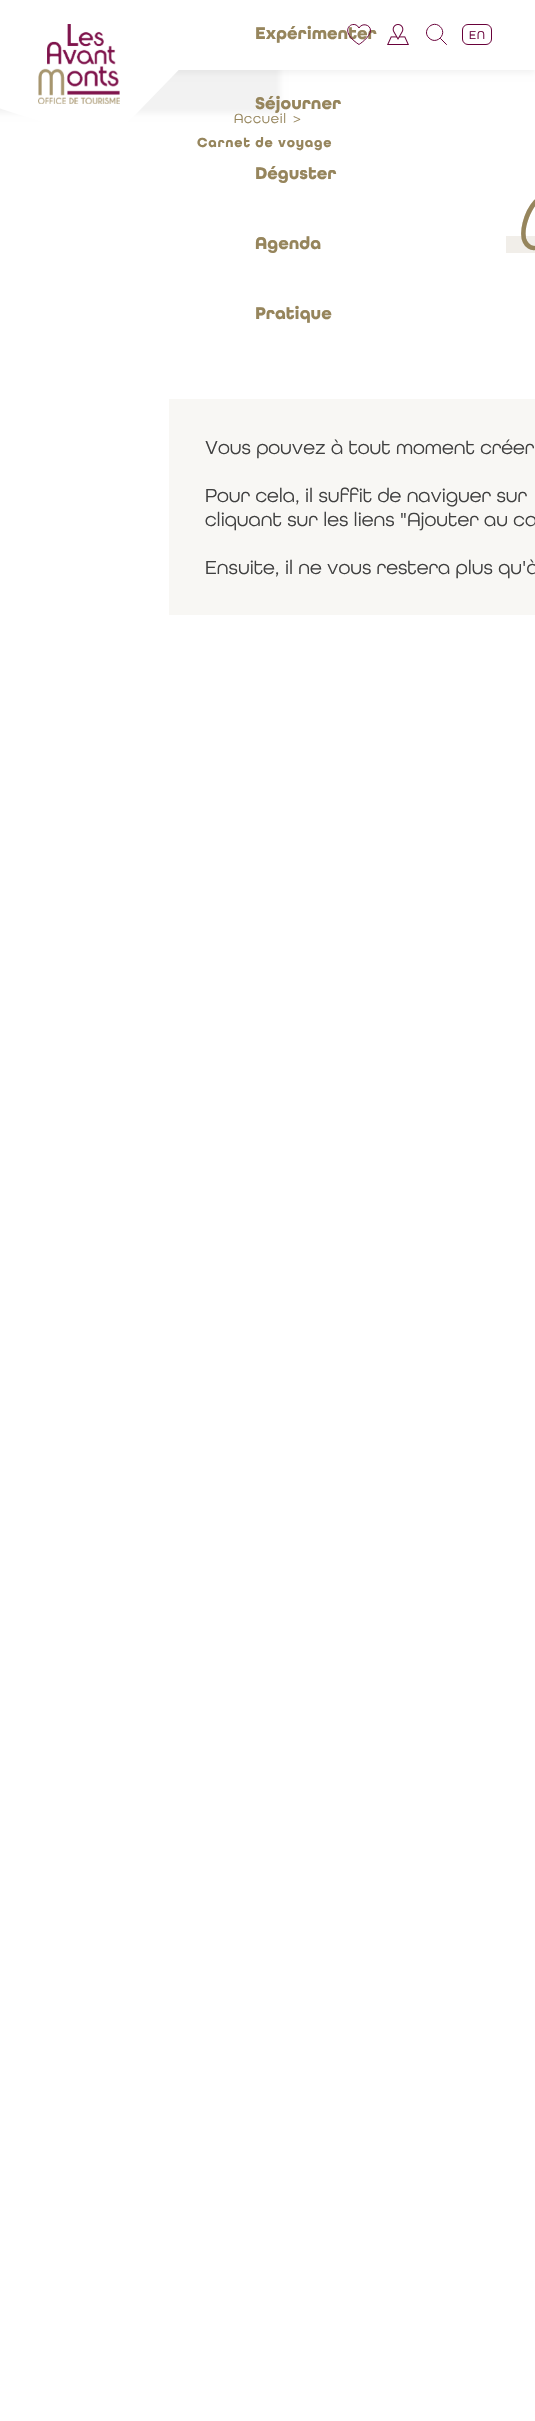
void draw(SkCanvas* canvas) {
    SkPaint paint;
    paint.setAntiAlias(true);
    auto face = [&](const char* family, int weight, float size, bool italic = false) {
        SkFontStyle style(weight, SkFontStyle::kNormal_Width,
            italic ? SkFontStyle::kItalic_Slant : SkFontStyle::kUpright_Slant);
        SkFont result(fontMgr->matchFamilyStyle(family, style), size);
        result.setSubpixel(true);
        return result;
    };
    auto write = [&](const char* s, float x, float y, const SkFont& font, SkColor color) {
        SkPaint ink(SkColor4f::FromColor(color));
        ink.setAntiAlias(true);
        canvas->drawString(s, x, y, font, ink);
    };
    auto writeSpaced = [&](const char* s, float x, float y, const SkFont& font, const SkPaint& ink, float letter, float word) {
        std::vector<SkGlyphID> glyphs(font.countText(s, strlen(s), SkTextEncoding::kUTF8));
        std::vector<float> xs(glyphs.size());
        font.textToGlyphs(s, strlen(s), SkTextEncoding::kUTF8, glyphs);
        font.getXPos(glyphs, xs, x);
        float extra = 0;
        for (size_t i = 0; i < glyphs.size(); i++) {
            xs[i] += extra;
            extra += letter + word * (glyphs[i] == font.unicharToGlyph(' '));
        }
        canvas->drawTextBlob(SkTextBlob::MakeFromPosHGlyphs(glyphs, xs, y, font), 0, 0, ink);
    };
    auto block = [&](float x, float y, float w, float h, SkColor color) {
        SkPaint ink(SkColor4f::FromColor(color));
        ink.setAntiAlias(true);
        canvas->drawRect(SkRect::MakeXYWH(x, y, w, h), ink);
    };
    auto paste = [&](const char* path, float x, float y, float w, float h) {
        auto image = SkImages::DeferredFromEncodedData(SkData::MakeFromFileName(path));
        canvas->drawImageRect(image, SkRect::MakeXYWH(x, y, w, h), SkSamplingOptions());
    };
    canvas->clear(SK_ColorWHITE);
    paint.setColor(SkColorSetARGB(13, 0, 0, 0));
    paint.setMaskFilter(SkMaskFilter::MakeBlur(kNormal_SkBlurStyle, 3));
    canvas->drawRect(SkRect::MakeXYWH(-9, -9, 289, 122), paint);
    paint.setMaskFilter(nullptr);
    paint.setMaskFilter(SkMaskFilter::MakeBlur(kNormal_SkBlurStyle, 3));
    canvas->drawRect(SkRect::MakeXYWH(0, 3, 535, 70), paint);
    paint.setMaskFilter(nullptr);
    block(178, 0, 357, 70, SK_ColorWHITE);
    auto kFont1 = face("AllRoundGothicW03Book", 400, 14);
    paint.setColor(SkColorSetRGB(150, 133, 92));
    writeSpaced("Accueil", 234, 123, kFont1, paint, 0.75f, 0);
    auto kFont2 = face("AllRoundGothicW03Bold", 700, 14);
    writeSpaced("Carnet de voyage", 197, 147, kFont2, paint, 0.75f, 0);
    paint.setColor(SK_ColorWHITE);
    canvas->drawPath(SkPathBuilder().moveTo(153, -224).lineTo(388, -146).lineTo(107, 144).lineTo(-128, 66).close().detach(), paint);
    paste("pic1.png", 38, 24, 82, 80);
    auto kFont3 = face("AllRoundGothicW03Bold", 700, 18);
    write("Expérimenter", 255, 39, kFont3, SkColorSetRGB(150, 133, 92));
    write("Séjourner", 255, 109, kFont3, SkColorSetRGB(150, 133, 92));
    write("Déguster", 255, 179, kFont3, SkColorSetRGB(150, 133, 92));
    write("Agenda", 255, 249, kFont3, SkColorSetRGB(150, 133, 92));
    write("Pratique", 255, 319, kFont3, SkColorSetRGB(150, 133, 92));
    paint.setStyle(SkPaint::kStroke_Style);
    paint.setStrokeWidth(1);
    paint.setColor(SkColorSetRGB(105, 1, 58));
    canvas->drawPath(SkPathBuilder().moveTo(370.5f, 30.5f).cubicTo(370.5f, 24.5f, 362, 22.5f, 359, 28).cubicTo(354.5f, 18.5f, 336, 29.5f, 359, 44.5f).cubicTo(359, 44.5f, 370.5f, 37, 370.5f, 30.5f).detach(), paint);
    paste("pic2.png", 387, 24, 22, 21);
    canvas->drawPath(SkPathBuilder().moveTo(440.5f, 38.5f).lineTo(446.5f, 44.5f).close().moveTo(429, 38).cubicTo(421.5f, 31, 432.5f, 19.5f, 440, 26.5f).cubicTo(448, 34, 436.5f, 45.5f, 429, 38).close().detach(), paint);
    canvas->drawRoundRect(SkRect::MakeXYWH(462.5f, 24.5f, 29, 20), 5.5f, 5.5f, paint);
    auto kFont4 = face("AllRoundGothicW03Book", 400, 12);
    paint.setStyle(SkPaint::kFill_Style);
    writeSpaced("EN", 469, 39, kFont4, paint, 1, 0);
    paint.setColor(SkColorSetRGB(150, 133, 92));
    writeSpaced(">", 293, 123, kFont1, paint, 0.75f, 0);
    block(506, 236, 29, 17, SkColorSetRGB(241, 238, 233));
    auto kFont5 = face("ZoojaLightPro", 300, 85);
    write("C", 516, 251, kFont5, SkColorSetRGB(150, 133, 92));
    block(169, 399, 366, 216, SkColorSetRGB(248, 247, 244));
    auto kFont6 = face("AllRoundGothicW03Book", 400, 20);
    write("Vous pouvez à tout moment créer", 205, 454, kFont6, SkColorSetRGB(64, 64, 64));
    write("Pour cela, il suffit de naviguer sur", 205, 502, kFont6, SkColorSetRGB(64, 64, 64));
    write("cliquant sur les liens \"Ajouter au ca", 205, 526, kFont6, SkColorSetRGB(64, 64, 64));
    write("Ensuite, il ne vous restera plus qu'à", 205, 574, kFont6, SkColorSetRGB(64, 64, 64));
}
